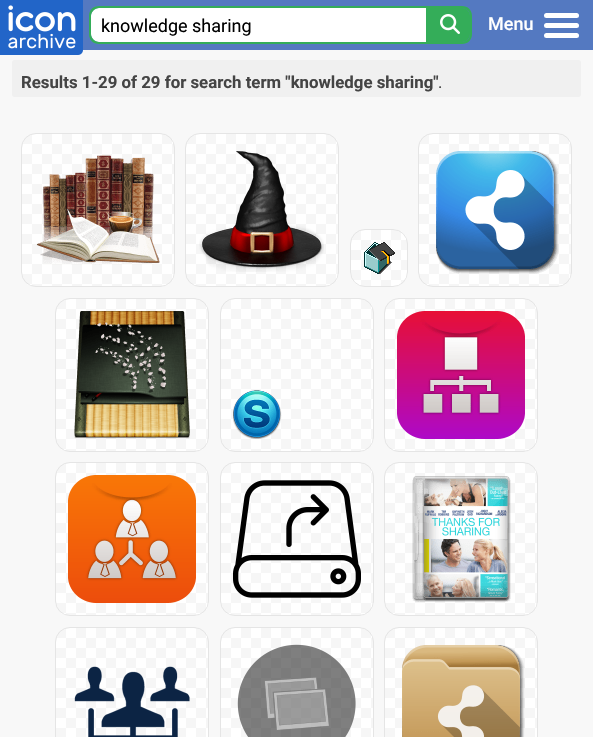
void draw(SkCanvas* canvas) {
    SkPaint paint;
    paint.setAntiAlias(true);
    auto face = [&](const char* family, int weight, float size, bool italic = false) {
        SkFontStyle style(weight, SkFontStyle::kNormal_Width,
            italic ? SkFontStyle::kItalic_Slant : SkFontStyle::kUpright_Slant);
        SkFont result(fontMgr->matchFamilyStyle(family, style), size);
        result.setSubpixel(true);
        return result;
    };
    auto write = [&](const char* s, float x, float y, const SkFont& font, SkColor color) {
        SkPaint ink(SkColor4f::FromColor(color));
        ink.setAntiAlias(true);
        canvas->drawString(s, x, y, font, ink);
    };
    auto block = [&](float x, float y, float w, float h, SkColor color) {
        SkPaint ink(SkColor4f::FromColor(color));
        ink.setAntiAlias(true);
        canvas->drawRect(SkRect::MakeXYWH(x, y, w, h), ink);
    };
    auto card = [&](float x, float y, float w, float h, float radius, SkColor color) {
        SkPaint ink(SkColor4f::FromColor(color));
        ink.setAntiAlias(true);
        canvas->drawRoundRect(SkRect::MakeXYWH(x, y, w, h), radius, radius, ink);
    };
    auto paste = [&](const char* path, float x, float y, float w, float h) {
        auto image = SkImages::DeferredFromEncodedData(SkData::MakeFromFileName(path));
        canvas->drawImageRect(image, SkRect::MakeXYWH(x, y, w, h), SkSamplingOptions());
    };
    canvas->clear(SkColorSetRGB(248, 248, 248));
    block(83, 0, 510, 50, SkColorSetRGB(84, 121, 193));
    paste("pic1.png", 0, 0, 83, 55);
    paint.setColor(SK_ColorWHITE);
    canvas->drawPath(SkPathBuilder().moveTo(99, 8).lineTo(426, 8).lineTo(426, 42).lineTo(99, 42).cubicTo(94.5f, 42, 91, 38.5f, 91, 34).lineTo(91, 16).cubicTo(91, 11.5f, 94.5f, 8, 99, 8).close().detach(), paint);
    paint.setColor(SkColorSetRGB(52, 173, 89));
    canvas->drawPath(SkPathBuilder(SkPathFillType::kEvenOdd).moveTo(99, 6).lineTo(426, 6).lineTo(426, 44).lineTo(99, 44).cubicTo(93, 44, 89, 40, 89, 34).lineTo(89, 16).cubicTo(89, 10, 93, 6, 99, 6).close().moveTo(99, 8).lineTo(426, 8).lineTo(426, 42).lineTo(99, 42).cubicTo(95, 42, 91, 38, 91, 34).lineTo(91, 16).cubicTo(91, 12, 95, 8, 99, 8).close().detach(), paint);
    auto kFont1 = face("Roboto", 400, 18);
    write("knowledge sharing", 101, 32, kFont1, SK_ColorBLACK);
    canvas->drawPath(SkPathBuilder().moveTo(426, 8).lineTo(462, 8).cubicTo(466.5f, 8, 470, 11.5f, 470, 16).lineTo(470, 34).cubicTo(470, 38.5f, 466.5f, 42, 462, 42).lineTo(426, 42).close().detach(), paint);
    canvas->drawPath(SkPathBuilder(SkPathFillType::kEvenOdd).moveTo(426, 6).lineTo(462, 6).cubicTo(468, 6, 472, 10, 472, 16).lineTo(472, 34).cubicTo(472, 40, 468, 44, 462, 44).lineTo(426, 44).close().moveTo(426, 8).lineTo(456, 8).cubicTo(471, 8, 470, 11, 470, 25).cubicTo(470, 39, 471, 42, 456, 42).lineTo(426, 42).close().detach(), paint);
    paste("pic2.png", 440, 14, 20, 20);
    auto kFont2 = face("Roboto", 500, 18);
    write("Menu", 488, 30, kFont2, SK_ColorWHITE);
    card(544, 13, 35, 5, 2.5f, SK_ColorWHITE);
    card(544, 23, 35, 5, 2.5f, SK_ColorWHITE);
    card(544, 33, 35, 5, 2.5f, SK_ColorWHITE);
    card(12, 60, 569, 37, 3, SkColorSetRGB(240, 240, 240));
    auto kFont3 = face("Roboto", 700, 16.8f);
    write("Results 1-29 of 29 for search term \"knowledge sharing\"", 21, 88, kFont3, SkColorSetRGB(68, 68, 68));
    auto kFont4 = face("Roboto", 400, 16.8f);
    write(".", 438, 88, kFont4, SkColorSetRGB(68, 68, 68));
    paste("pic3.png", 21, 133, 154, 154);
    paint.setStyle(SkPaint::kStroke_Style);
    paint.setStrokeWidth(1);
    paint.setColor(SkColorSetRGB(229, 229, 229));
    canvas->drawRoundRect(SkRect::MakeXYWH(21.5f, 133.5f, 153, 153), 14.5f, 14.5f, paint);
    paste("pic4.png", 36, 155, 124, 110);
    paste("pic3.png", 185, 133, 154, 154);
    canvas->drawRoundRect(SkRect::MakeXYWH(185.5f, 133.5f, 153, 153), 14.5f, 14.5f, paint);
    paste("pic5.png", 199, 151, 125, 121);
    paste("pic6.png", 350, 229, 58, 58);
    canvas->drawRoundRect(SkRect::MakeXYWH(350.5f, 229.5f, 57, 57), 14.5f, 14.5f, paint);
    paste("pic7.png", 364, 242, 31, 32);
    paste("pic3.png", 418, 133, 154, 154);
    canvas->drawRoundRect(SkRect::MakeXYWH(418.5f, 133.5f, 153, 153), 14.5f, 14.5f, paint);
    paste("pic8.png", 436, 151, 123, 123);
    paste("pic3.png", 55, 298, 154, 154);
    canvas->drawRoundRect(SkRect::MakeXYWH(55.5f, 298.5f, 153, 153), 14.5f, 14.5f, paint);
    paste("pic9.png", 74, 311, 116, 128);
    paste("pic3.png", 220, 298, 154, 154);
    canvas->drawRoundRect(SkRect::MakeXYWH(220.5f, 298.5f, 153, 153), 14.5f, 14.5f, paint);
    paste("pic10.png", 233, 390, 49, 49);
    paste("pic3.png", 384, 298, 154, 154);
    canvas->drawRoundRect(SkRect::MakeXYWH(384.5f, 298.5f, 153, 153), 14.5f, 14.5f, paint);
    paste("pic11.png", 397, 311, 128, 128);
    paste("pic3.png", 55, 462, 154, 154);
    canvas->drawRoundRect(SkRect::MakeXYWH(55.5f, 462.5f, 153, 153), 14.5f, 14.5f, paint);
    paste("pic12.png", 68, 475, 128, 128);
    paste("pic3.png", 220, 462, 154, 154);
    canvas->drawRoundRect(SkRect::MakeXYWH(220.5f, 462.5f, 153, 153), 14.5f, 14.5f, paint);
    paste("pic13.png", 233, 480, 128, 118);
    paste("pic3.png", 384, 462, 154, 154);
    canvas->drawRoundRect(SkRect::MakeXYWH(384.5f, 462.5f, 153, 153), 14.5f, 14.5f, paint);
    paste("pic14.png", 412, 476, 99, 126);
    paste("pic15.png", 55, 627, 154, 110);
    canvas->drawRoundRect(SkRect::MakeXYWH(55.5f, 627.5f, 153, 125), 14.5f, 14.5f, paint);
    paste("pic16.png", 74, 666, 116, 71);
    paste("pic15.png", 220, 627, 154, 110);
    canvas->drawRoundRect(SkRect::MakeXYWH(220.5f, 627.5f, 153, 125), 14.5f, 14.5f, paint);
    paste("pic17.png", 237, 644, 119, 93);
    paste("pic15.png", 384, 627, 154, 110);
    canvas->drawRoundRect(SkRect::MakeXYWH(384.5f, 627.5f, 153, 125), 14.5f, 14.5f, paint);
    paste("pic18.png", 402, 645, 123, 92);
}
